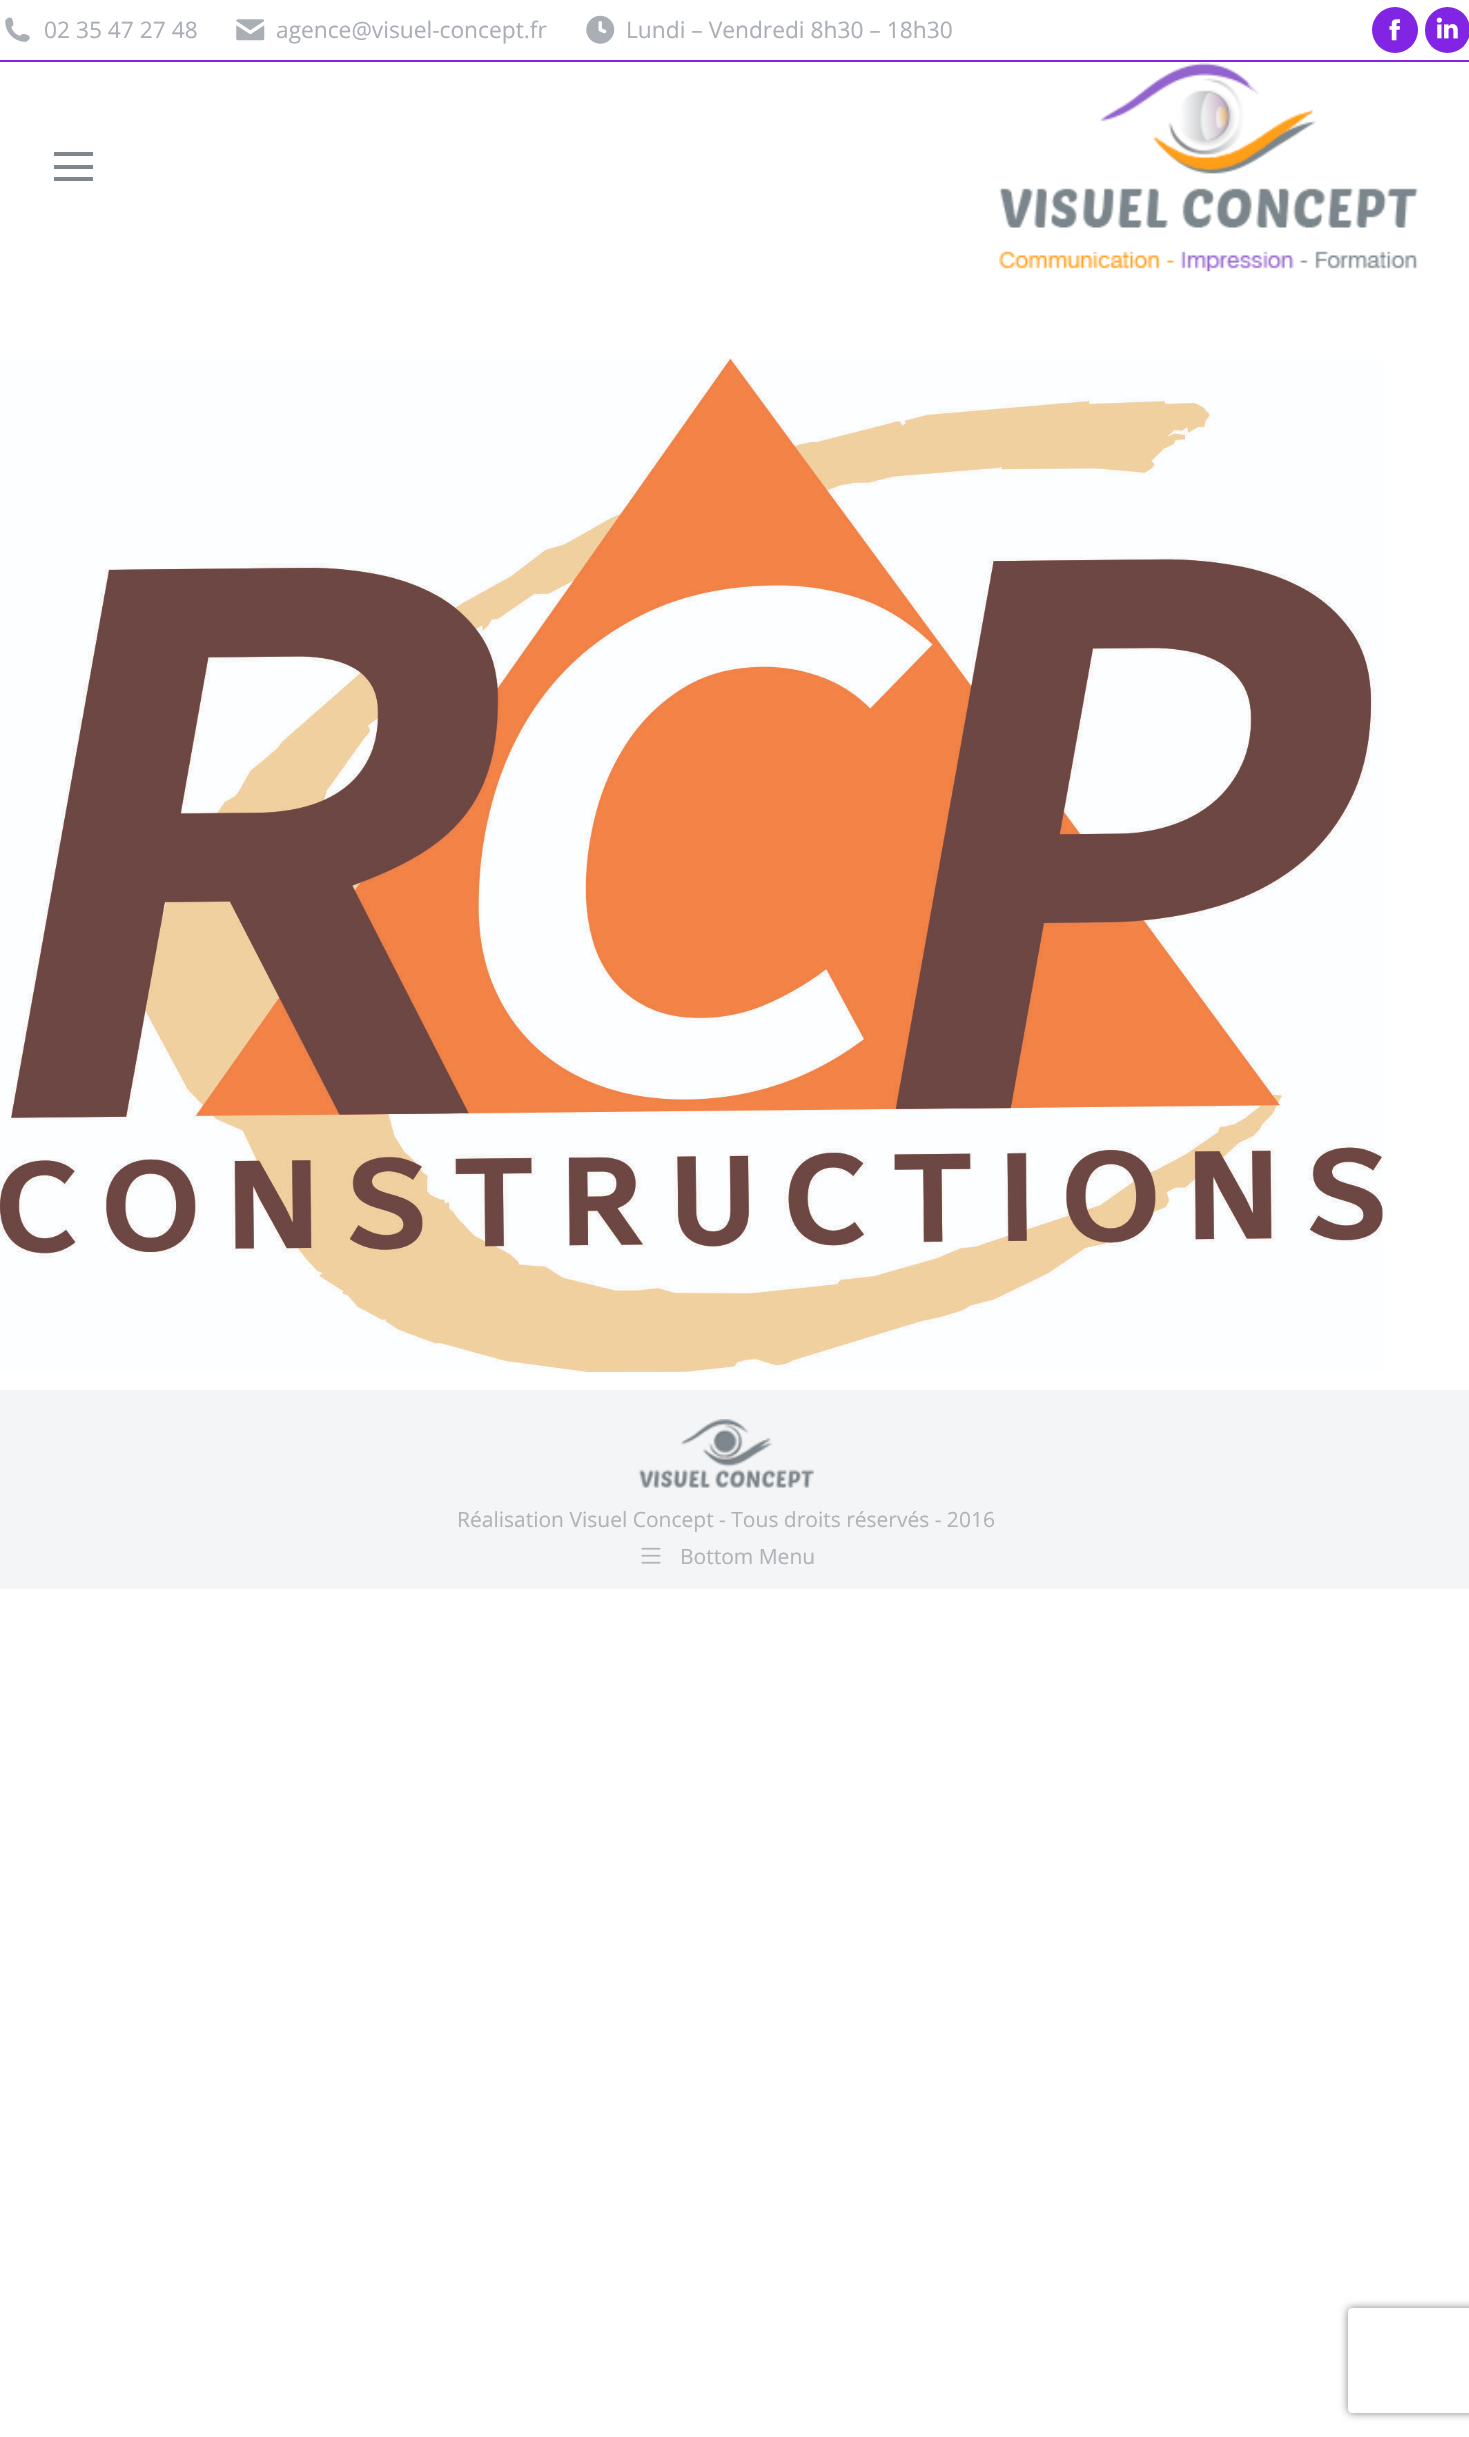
void draw(SkCanvas* canvas) {
    SkPaint paint;
    paint.setAntiAlias(true);
    auto face = [&](const char* family, int weight, float size, bool italic = false) {
        SkFontStyle style(weight, SkFontStyle::kNormal_Width,
            italic ? SkFontStyle::kItalic_Slant : SkFontStyle::kUpright_Slant);
        SkFont result(fontMgr->matchFamilyStyle(family, style), size);
        result.setSubpixel(true);
        return result;
    };
    auto write = [&](const char* s, float x, float y, const SkFont& font, SkColor color) {
        SkPaint ink(SkColor4f::FromColor(color));
        ink.setAntiAlias(true);
        canvas->drawString(s, x, y, font, ink);
    };
    auto block = [&](float x, float y, float w, float h, SkColor color) {
        SkPaint ink(SkColor4f::FromColor(color));
        ink.setAntiAlias(true);
        canvas->drawRect(SkRect::MakeXYWH(x, y, w, h), ink);
    };
    auto card = [&](float x, float y, float w, float h, float radius, SkColor color) {
        SkPaint ink(SkColor4f::FromColor(color));
        ink.setAntiAlias(true);
        canvas->drawRoundRect(SkRect::MakeXYWH(x, y, w, h), radius, radius, ink);
    };
    auto paste = [&](const char* path, float x, float y, float w, float h) {
        auto image = SkImages::DeferredFromEncodedData(SkData::MakeFromFileName(path));
        canvas->drawImageRect(image, SkRect::MakeXYWH(x, y, w, h), SkSamplingOptions());
    };
    canvas->clear(SK_ColorWHITE);
    paste("pic1.png", 5, 17, 25, 25);
    auto kFont1 = face("Open Sans", 400, 22.75f);
    write("02 35 47 27 48", 44, 38, kFont1, SkColorSetRGB(170, 174, 181));
    paste("pic2.png", 236, 19, 29, 22);
    write("agence@visuel-concept.fr", 276, 38, kFont1, SkColorSetRGB(170, 174, 181));
    paste("pic3.png", 586, 15, 29, 29);
    write("Lundi – Vendredi 8h30 – 18h30", 626, 38, kFont1, SkColorSetRGB(170, 174, 181));
    paint.setColor(SkColorSetRGB(130, 36, 227));
    canvas->drawCircle(1395, 30, 23, paint);
    paste("pic4.png", 1389, 19, 12, 22);
    card(1425, 7, 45, 46, 22.5f, SkColorSetRGB(130, 36, 227));
    paste("pic5.png", 1436, 17, 22, 22);
    block(0, 60, 1469, 2, SkColorSetRGB(130, 36, 227));
    block(54, 152, 39, 4, SkColorSetRGB(126, 135, 141));
    block(54, 165, 39, 4, SkColorSetRGB(126, 135, 141));
    block(54, 177, 39, 4, SkColorSetRGB(126, 135, 141));
    paste("pic6.png", 999, 62, 419, 210);
    paste("pic7.png", 0, 358, 1383, 1014);
    block(0, 1390, 1469, 199, SkColorSetRGB(244, 245, 246));
    paste("pic8.png", 638, 1419, 176, 69);
    auto kFont2 = face("Open Sans", 400, 21);
    write("Réalisation Visuel Concept - Tous droits réservés - 2016", 457, 1527, kFont2, SkColorSetRGB(176, 180, 184));
    paste("pic9.png", 641, 1547, 20, 17);
    write("Bottom Menu", 680, 1564, kFont2, SkColorSetRGB(176, 180, 184));
    canvas->save();
    canvas->clipPath(SkPathBuilder(SkPathFillType::kEvenOdd).moveTo(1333, 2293).lineTo(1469, 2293).lineTo(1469, 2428).lineTo(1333, 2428).close().moveTo(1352, 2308).lineTo(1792, 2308).cubicTo(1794, 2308, 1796, 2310, 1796, 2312).lineTo(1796, 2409).cubicTo(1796, 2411, 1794, 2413, 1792, 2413).lineTo(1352, 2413).cubicTo(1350, 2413, 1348, 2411, 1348, 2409).lineTo(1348, 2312).cubicTo(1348, 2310, 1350, 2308, 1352, 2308).close().detach(), true);
    paint.setColor(SkColorSetRGB(128, 128, 128));
    paint.setMaskFilter(SkMaskFilter::MakeBlur(kNormal_SkBlurStyle, 4.5f));
    canvas->drawRoundRect(SkRect::MakeXYWH(1348, 2308, 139, 105), 4, 4, paint);
    paint.setMaskFilter(nullptr);
    canvas->restore();
}
